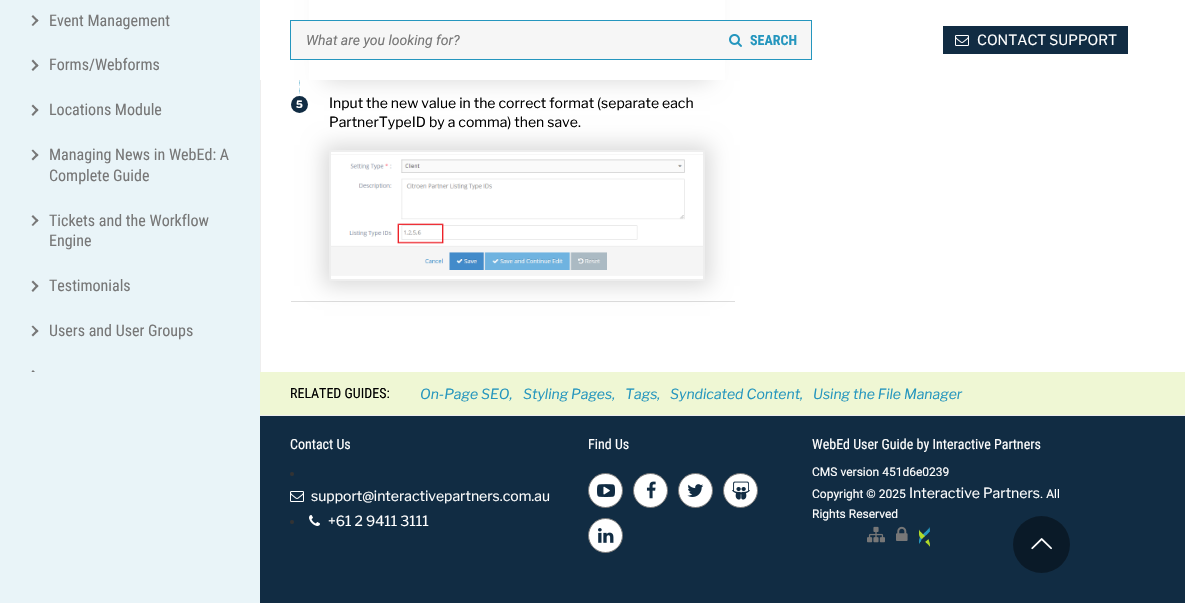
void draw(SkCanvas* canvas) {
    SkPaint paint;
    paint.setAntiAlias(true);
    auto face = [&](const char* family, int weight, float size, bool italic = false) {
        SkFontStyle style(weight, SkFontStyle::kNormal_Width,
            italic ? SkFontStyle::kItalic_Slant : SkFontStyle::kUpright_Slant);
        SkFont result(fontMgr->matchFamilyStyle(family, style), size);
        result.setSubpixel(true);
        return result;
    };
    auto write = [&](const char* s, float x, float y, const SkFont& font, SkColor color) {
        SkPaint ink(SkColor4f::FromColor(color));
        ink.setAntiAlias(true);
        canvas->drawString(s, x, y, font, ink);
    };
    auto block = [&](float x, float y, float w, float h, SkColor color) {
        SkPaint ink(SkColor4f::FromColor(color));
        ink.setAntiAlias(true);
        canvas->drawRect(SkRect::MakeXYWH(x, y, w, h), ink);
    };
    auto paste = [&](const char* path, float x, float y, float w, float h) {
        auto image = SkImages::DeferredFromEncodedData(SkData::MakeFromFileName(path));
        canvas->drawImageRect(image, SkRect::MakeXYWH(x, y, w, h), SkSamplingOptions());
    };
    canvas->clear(SK_ColorWHITE);
    block(0, 0, 260, 603, SkColorSetRGB(233, 244, 248));
    paint.setColor(SkColorSetRGB(119, 119, 119));
    canvas->drawPath(SkPathBuilder().moveTo(33, 15).lineTo(38.5f, 20.5f).lineTo(37, 22).lineTo(31.5f, 16.5f).close().detach(), paint);
    canvas->drawPath(SkPathBuilder().moveTo(37, 19).lineTo(38.5f, 20.5f).lineTo(33, 26).lineTo(31.5f, 25).close().moveTo(33, 59.5f).lineTo(38.5f, 65.5f).lineTo(37, 67).lineTo(31.5f, 61).close().detach(), paint);
    auto kFont1 = face("Roboto Condensed", 400, 16);
    write("Event Management", 49, 26, kFont1, SkColorSetRGB(119, 119, 119));
    canvas->drawPath(SkPathBuilder().moveTo(37, 64).lineTo(38.5f, 65.5f).lineTo(33, 71).lineTo(31.5f, 69.5f).close().moveTo(33, 104.5f).lineTo(38.5f, 110).lineTo(37, 111.5f).lineTo(31.5f, 106).close().detach(), paint);
    write("Forms/Webforms", 49, 70, kFont1, SkColorSetRGB(119, 119, 119));
    canvas->drawPath(SkPathBuilder().moveTo(37, 108.5f).lineTo(38.5f, 110).lineTo(33, 116).lineTo(31.5f, 114.5f).close().moveTo(33, 149.5f).lineTo(38.5f, 155).lineTo(37, 156.5f).lineTo(31.5f, 150.5f).close().detach(), paint);
    write("Locations Module", 49, 115, kFont1, SkColorSetRGB(119, 119, 119));
    canvas->drawPath(SkPathBuilder().moveTo(37, 153.5f).lineTo(38.5f, 155).lineTo(33, 160.5f).lineTo(31.5f, 159).close().detach(), paint);
    write("Managing News in WebEd: A", 49, 160, kFont1, SkColorSetRGB(119, 119, 119));
    write("Complete Guide", 49, 181, kFont1, SkColorSetRGB(119, 119, 119));
    canvas->drawPath(SkPathBuilder().moveTo(33, 215).lineTo(38.5f, 220.5f).lineTo(37, 222).lineTo(31.5f, 216.5f).close().detach(), paint);
    canvas->drawPath(SkPathBuilder().moveTo(37, 219).lineTo(38.5f, 220.5f).lineTo(33, 226).lineTo(31.5f, 225).close().detach(), paint);
    write("Tickets and the Workflow", 49, 226, kFont1, SkColorSetRGB(119, 119, 119));
    write("Engine", 49, 246, kFont1, SkColorSetRGB(119, 119, 119));
    canvas->drawPath(SkPathBuilder().moveTo(33, 280.5f).lineTo(38.5f, 286).lineTo(37, 287.5f).lineTo(31.5f, 282).close().detach(), paint);
    canvas->drawPath(SkPathBuilder().moveTo(37, 284.5f).lineTo(38.5f, 286).lineTo(33, 292).lineTo(31.5f, 290.5f).close().moveTo(33, 325.5f).lineTo(38.5f, 331).lineTo(37, 332.5f).lineTo(31.5f, 326.5f).close().detach(), paint);
    write("Testimonials", 49, 291, kFont1, SkColorSetRGB(119, 119, 119));
    canvas->drawPath(SkPathBuilder().moveTo(37, 329.5f).lineTo(38.5f, 331).lineTo(33, 336.5f).lineTo(31.5f, 335).close().detach(), paint);
    write("Users and User Groups", 49, 336, kFont1, SkColorSetRGB(119, 119, 119));
    canvas->save();
    canvas->clipRect(SkRect::MakeXYWH(0, 0, 260, 372));
    canvas->drawPath(SkPathBuilder().moveTo(33, 370).lineTo(38.5f, 375.5f).lineTo(37, 377).lineTo(31.5f, 371.5f).close().detach(), paint);
    canvas->restore();
    block(260, 80, 1, 292, SkColorSetRGB(238, 238, 238));
    block(291, 301, 444, 1, SkColorSetRGB(221, 221, 221));
    paint.setColor(SkColorSetARGB(38, 0, 0, 0));
    paint.setMaskFilter(SkMaskFilter::MakeBlur(kNormal_SkBlurStyle, 10));
    canvas->drawRect(SkRect::MakeXYWH(324, -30, 386, 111), paint);
    paint.setMaskFilter(nullptr);
    paste("pic1.png", 299, 80, 1, 17);
    paint.setColor(SkColorSetRGB(17, 44, 67));
    canvas->drawCircle(299.5f, 104.5f, 8.5f, paint);
    auto kFont2 = face("Libre Franklin", 700, 10);
    write("5", 296, 108, kFont2, SK_ColorWHITE);
    auto kFont3 = face("Libre Franklin", 400, 14);
    write("Input the new value in the correct format (separate each", 329, 108, kFont3, SK_ColorBLACK);
    canvas->save();
    canvas->clipPath(SkPathBuilder(SkPathFillType::kEvenOdd).moveTo(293, 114).lineTo(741, 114).lineTo(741, 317).lineTo(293, 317).close().moveTo(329, 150).lineTo(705, 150).lineTo(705, 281).lineTo(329, 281).close().detach(), true);
    paint.setColor(SkColorSetARGB(38, 0, 0, 0));
    paint.setMaskFilter(SkMaskFilter::MakeBlur(kNormal_SkBlurStyle, 10));
    canvas->drawRect(SkRect::MakeXYWH(324, 145, 386, 141), paint);
    paint.setMaskFilter(nullptr);
    canvas->restore();
    write("PartnerTypeID by a comma) then save.", 329, 127, kFont3, SK_ColorBLACK);
    paint.setStyle(SkPaint::kStroke_Style);
    paint.setStrokeWidth(2);
    paint.setColor(SkColorSetRGB(238, 238, 238));
    canvas->drawRect(SkRect::MakeXYWH(330, 151, 374, 129), paint);
    paste("pic2.png", 331, 154, 372, 122);
    block(309, 0, 416, 80, SK_ColorWHITE);
    paint.setStyle(SkPaint::kFill_Style);
    paint.setColor(SkColorSetRGB(246, 246, 246));
    canvas->drawRect(SkRect::MakeXYWH(290.5f, 20.5f, 521, 39), paint);
    paint.setStyle(SkPaint::kStroke_Style);
    paint.setStrokeWidth(1);
    paint.setColor(SkColorSetRGB(37, 150, 190));
    canvas->drawRect(SkRect::MakeXYWH(290.5f, 20.5f, 521, 39), paint);
    auto kFont4 = face("Roboto", 400, 14, true);
    write("What are you looking for?", 306, 45, kFont4, SkColorSetRGB(119, 119, 119));
    paste("pic3.png", 729, 34, 13, 13);
    auto kFont5 = face("Roboto Condensed", 700, 14);
    write("SEARCH", 750, 45, kFont5, SkColorSetRGB(37, 150, 190));
    block(943, 26, 185, 28, SkColorSetRGB(17, 44, 67));
    paste("pic4.png", 955, 35, 14, 11);
    write("CONTACT SUPPORT", 977, 45, kFont3, SK_ColorWHITE);
    block(260, 372, 925, 43, SkColorSetRGB(239, 247, 212));
    auto kFont6 = face("Roboto Condensed", 400, 14);
    write("RELATED GUIDES:", 290, 398, kFont6, SK_ColorBLACK);
    auto kFont7 = face("Libre Franklin", 400, 14, true);
    write("On-Page SEO,", 420, 399, kFont7, SkColorSetRGB(37, 150, 190));
    write("Styling Pages,", 523, 399, kFont7, SkColorSetRGB(37, 150, 190));
    write("Tags,", 625, 399, kFont7, SkColorSetRGB(37, 150, 190));
    write("Syndicated Content,", 670, 399, kFont7, SkColorSetRGB(37, 150, 190));
    write("Using the File Manager", 813, 399, kFont7, SkColorSetRGB(37, 150, 190));
    block(260, 416, 925, 187, SkColorSetRGB(17, 44, 67));
    block(260, 415, 925, 1, SkColorSetRGB(238, 238, 238));
    write("Contact Us", 290, 449, kFont6, SK_ColorWHITE);
    paint.setStyle(SkPaint::kFill_Style);
    paint.setColor(SkColorSetRGB(51, 51, 51));
    canvas->drawCircle(292, 474, 2, paint);
    paste("pic4.png", 290, 491, 14, 11);
    write("support@interactivepartners.com.au", 311, 501, kFont3, SK_ColorWHITE);
    canvas->drawCircle(292, 522, 2, paint);
    paste("pic5.png", 309, 515, 11, 11);
    write("+61 2 9411 3111", 328, 526, kFont3, SK_ColorWHITE);
    write("Find Us", 588, 449, kFont6, SK_ColorWHITE);
    paint.setColor(SK_ColorWHITE);
    canvas->drawCircle(605.5f, 490.5f, 17, paint);
    paint.setStyle(SkPaint::kStroke_Style);
    paint.setColor(SkColorSetRGB(119, 119, 119));
    canvas->drawCircle(605.5f, 490.5f, 17, paint);
    paste("pic6.png", 597, 484, 18, 13);
    paint.setStyle(SkPaint::kFill_Style);
    paint.setColor(SK_ColorWHITE);
    canvas->drawCircle(650.5f, 490.5f, 17, paint);
    paint.setStyle(SkPaint::kStroke_Style);
    paint.setColor(SkColorSetRGB(119, 119, 119));
    canvas->drawCircle(650.5f, 490.5f, 17, paint);
    paste("pic7.png", 646, 481, 10, 18);
    paint.setStyle(SkPaint::kFill_Style);
    paint.setColor(SK_ColorWHITE);
    canvas->drawCircle(695.5f, 490.5f, 17, paint);
    paint.setStyle(SkPaint::kStroke_Style);
    paint.setColor(SkColorSetRGB(119, 119, 119));
    canvas->drawCircle(695.5f, 490.5f, 17, paint);
    paste("pic8.png", 687, 484, 17, 13);
    paint.setStyle(SkPaint::kFill_Style);
    paint.setColor(SK_ColorWHITE);
    canvas->drawCircle(740.5f, 490.5f, 17, paint);
    paint.setStyle(SkPaint::kStroke_Style);
    paint.setColor(SkColorSetRGB(119, 119, 119));
    canvas->drawCircle(740.5f, 490.5f, 17, paint);
    paste("pic9.png", 732, 481, 18, 19);
    paint.setStyle(SkPaint::kFill_Style);
    paint.setColor(SK_ColorWHITE);
    canvas->drawCircle(605.5f, 535.5f, 17, paint);
    paint.setStyle(SkPaint::kStroke_Style);
    paint.setColor(SkColorSetRGB(119, 119, 119));
    canvas->drawCircle(605.5f, 535.5f, 17, paint);
    paste("pic10.png", 598, 528, 16, 15);
    write("WebEd User Guide by Interactive Partners", 812, 449, kFont6, SK_ColorWHITE);
    auto kFont8 = face("Roboto", 400, 12);
    write("CMS version 451d6e0239", 812, 476, kFont8, SK_ColorWHITE);
    write("Copyright © 2025", 812, 498, kFont8, SK_ColorWHITE);
    write("Interactive Partners", 909, 498, kFont3, SK_ColorWHITE);
    write(". All", 1040, 498, kFont8, SK_ColorWHITE);
    write("Rights Reserved", 812, 518, kFont8, SK_ColorWHITE);
    paste("pic11.png", 867, 526, 18, 17);
    paste("pic12.png", 896, 526, 12, 15);
    paste("pic13.png", 919, 527, 11, 20);
    paint.setStyle(SkPaint::kFill_Style);
    paint.setColor(SkColorSetRGB(10, 26, 40));
    canvas->drawCircle(1041.5f, 544.5f, 28.5f, paint);
    paste("pic14.png", 1031, 538, 21, 12);
}
